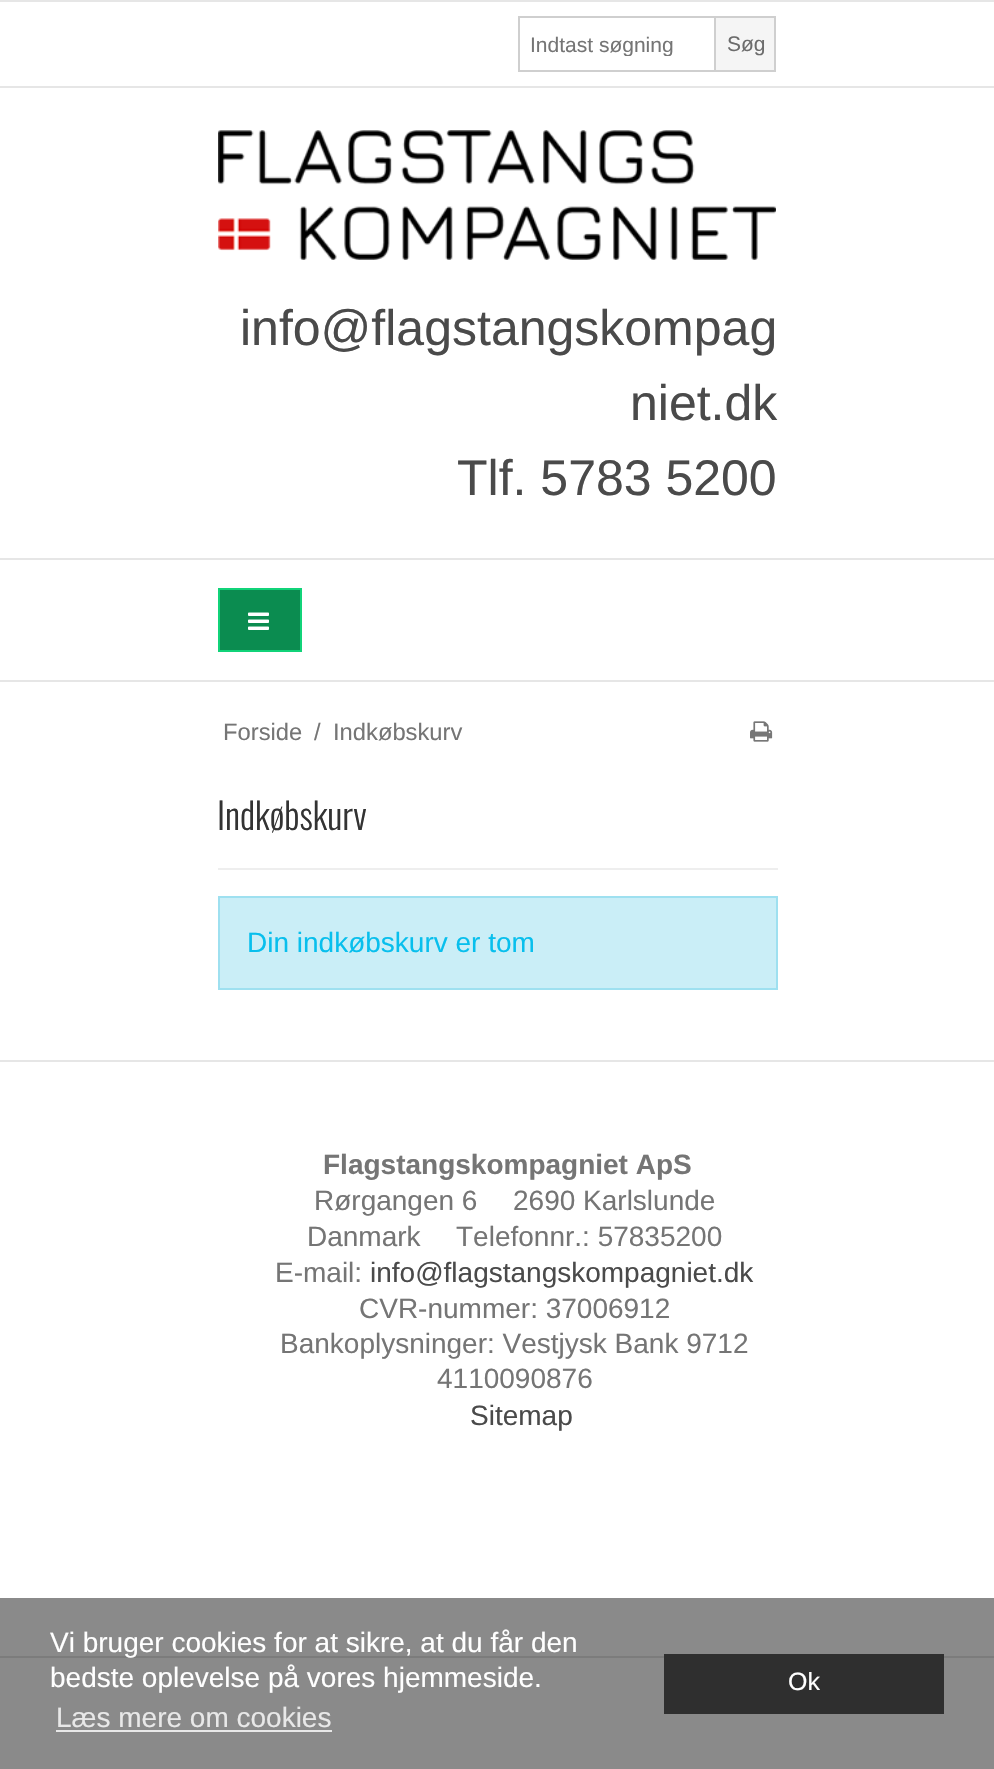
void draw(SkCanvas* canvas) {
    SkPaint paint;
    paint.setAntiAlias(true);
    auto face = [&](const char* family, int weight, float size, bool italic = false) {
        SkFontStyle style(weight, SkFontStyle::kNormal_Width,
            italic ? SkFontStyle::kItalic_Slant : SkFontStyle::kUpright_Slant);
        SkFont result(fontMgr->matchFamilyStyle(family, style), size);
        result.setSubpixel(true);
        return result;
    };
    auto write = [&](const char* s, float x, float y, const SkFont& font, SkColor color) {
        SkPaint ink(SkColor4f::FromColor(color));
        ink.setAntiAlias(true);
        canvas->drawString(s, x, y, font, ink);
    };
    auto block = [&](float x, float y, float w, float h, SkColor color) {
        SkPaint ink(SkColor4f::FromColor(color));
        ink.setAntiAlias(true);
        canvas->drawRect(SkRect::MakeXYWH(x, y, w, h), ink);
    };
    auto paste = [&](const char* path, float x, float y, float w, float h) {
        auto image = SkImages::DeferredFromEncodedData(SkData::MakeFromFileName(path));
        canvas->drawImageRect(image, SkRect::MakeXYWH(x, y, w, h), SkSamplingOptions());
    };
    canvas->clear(SK_ColorWHITE);
    block(0, 1598, 994, 171, SkColorSetRGB(138, 138, 138));
    block(0, 0, 994, 2, SkColorSetRGB(230, 230, 230));
    block(0, 86, 994, 2, SkColorSetRGB(230, 230, 230));
    block(518, 16, 198, 2, SkColorSetRGB(207, 207, 207));
    block(518, 70, 198, 2, SkColorSetRGB(207, 207, 207));
    block(518, 16, 2, 56, SkColorSetRGB(207, 207, 207));
    canvas->save();
    canvas->clipRect(SkRect::MakeXYWH(530, 32, 174, 24));
    auto kFont1 = face("Liberation Sans", 400, 21);
    write("Indtast søgning", 530, 52, kFont1, SkColorSetRGB(117, 117, 117));
    canvas->restore();
    paint.setColor(SkColorSetRGB(245, 245, 245));
    canvas->drawRect(SkRect::MakeXYWH(715, 17, 60, 54), paint);
    paint.setStyle(SkPaint::kStroke_Style);
    paint.setStrokeWidth(2);
    paint.setColor(SkColorSetRGB(207, 207, 207));
    canvas->drawRect(SkRect::MakeXYWH(715, 17, 60, 54), paint);
    write("Søg", 727, 51, kFont1, SkColorSetRGB(108, 108, 108));
    paste("pic1.png", 218, 130, 558, 130);
    auto kFont2 = face("Liberation Sans", 400, 50);
    write("info@flagstangskompag", 240, 345, kFont2, SkColorSetRGB(74, 74, 74));
    write("niet.dk", 630, 420, kFont2, SkColorSetRGB(74, 74, 74));
    write("Tlf. 5783 5200", 457, 495, kFont2, SkColorSetRGB(74, 74, 74));
    block(0, 558, 994, 2, SkColorSetRGB(230, 230, 230));
    block(0, 680, 994, 2, SkColorSetRGB(230, 230, 230));
    paint.setStyle(SkPaint::kFill_Style);
    paint.setColor(SkColorSetRGB(11, 140, 80));
    canvas->drawRect(SkRect::MakeXYWH(219, 589, 82, 62), paint);
    paint.setStyle(SkPaint::kStroke_Style);
    paint.setColor(SkColorSetRGB(17, 211, 121));
    canvas->drawRect(SkRect::MakeXYWH(219, 589, 82, 62), paint);
    paste("pic2.png", 248, 612, 21, 18);
    auto kFont3 = face("Liberation Sans", 400, 23.75f);
    write("Forside", 223, 740, kFont3, SkColorSetRGB(117, 117, 117));
    write("/", 314, 740, kFont3, SkColorSetRGB(117, 117, 117));
    write("Indkøbskurv", 333, 740, kFont3, SkColorSetRGB(117, 117, 117));
    paste("pic3.png", 750, 721, 23, 21);
    block(218, 868, 560, 2, SkColorSetRGB(238, 238, 238));
    auto kFont4 = face("Oswald", 300, 36.5f);
    write("Indkøbskurv", 217, 830, kFont4, SkColorSetRGB(51, 51, 51));
    paint.setStyle(SkPaint::kFill_Style);
    paint.setColor(SkColorSetRGB(202, 238, 247));
    canvas->drawRect(SkRect::MakeXYWH(219, 897, 558, 92), paint);
    paint.setStyle(SkPaint::kStroke_Style);
    paint.setColor(SkColorSetRGB(158, 224, 240));
    canvas->drawRect(SkRect::MakeXYWH(219, 897, 558, 92), paint);
    auto kFont5 = face("Liberation Sans", 400, 28);
    write("Din indkøbskurv er tom", 247, 952, kFont5, SkColorSetRGB(8, 191, 237));
    block(0, 1060, 994, 2, SkColorSetRGB(230, 230, 230));
    block(0, 1656, 994, 2, SkColorSetRGB(124, 124, 124));
    auto kFont6 = face("Liberation Sans", 700, 28);
    write("Flagstangskompagniet ApS", 323, 1174, kFont6, SkColorSetRGB(117, 117, 117));
    write("Rørgangen 6", 314, 1210, kFont5, SkColorSetRGB(117, 117, 117));
    write("2690 Karlslunde", 513, 1210, kFont5, SkColorSetRGB(117, 117, 117));
    write("Danmark", 307, 1246, kFont5, SkColorSetRGB(117, 117, 117));
    write("Telefonnr.: 57835200", 456, 1246, kFont5, SkColorSetRGB(117, 117, 117));
    write("E-mail:", 275, 1282, kFont5, SkColorSetRGB(117, 117, 117));
    write("info@flagstangskompagniet.dk", 370, 1282, kFont5, SkColorSetRGB(74, 74, 74));
    write("CVR-nummer: 37006912", 359, 1318, kFont5, SkColorSetRGB(117, 117, 117));
    write("Bankoplysninger: Vestjysk Bank 9712", 280, 1353, kFont5, SkColorSetRGB(117, 117, 117));
    write("4110090876", 437, 1388, kFont5, SkColorSetRGB(117, 117, 117));
    write("Sitemap", 470, 1425, kFont5, SkColorSetRGB(74, 74, 74));
    write("Vi bruger cookies for at sikre, at du får den", 50, 1652, kFont5, SK_ColorWHITE);
    write("bedste oplevelse på vores hjemmeside.", 50, 1687, kFont5, SK_ColorWHITE);
    write("Læs mere om cookies", 56, 1727, kFont5, SkColorSetRGB(232, 232, 232));
    block(56, 1730, 276, 2, SkColorSetRGB(232, 232, 232));
    block(664, 1654, 280, 60, SkColorSetRGB(47, 47, 47));
    auto kFont7 = face("Liberation Sans", 400, 25);
    write("Ok", 788, 1690, kFont7, SK_ColorWHITE);
}
